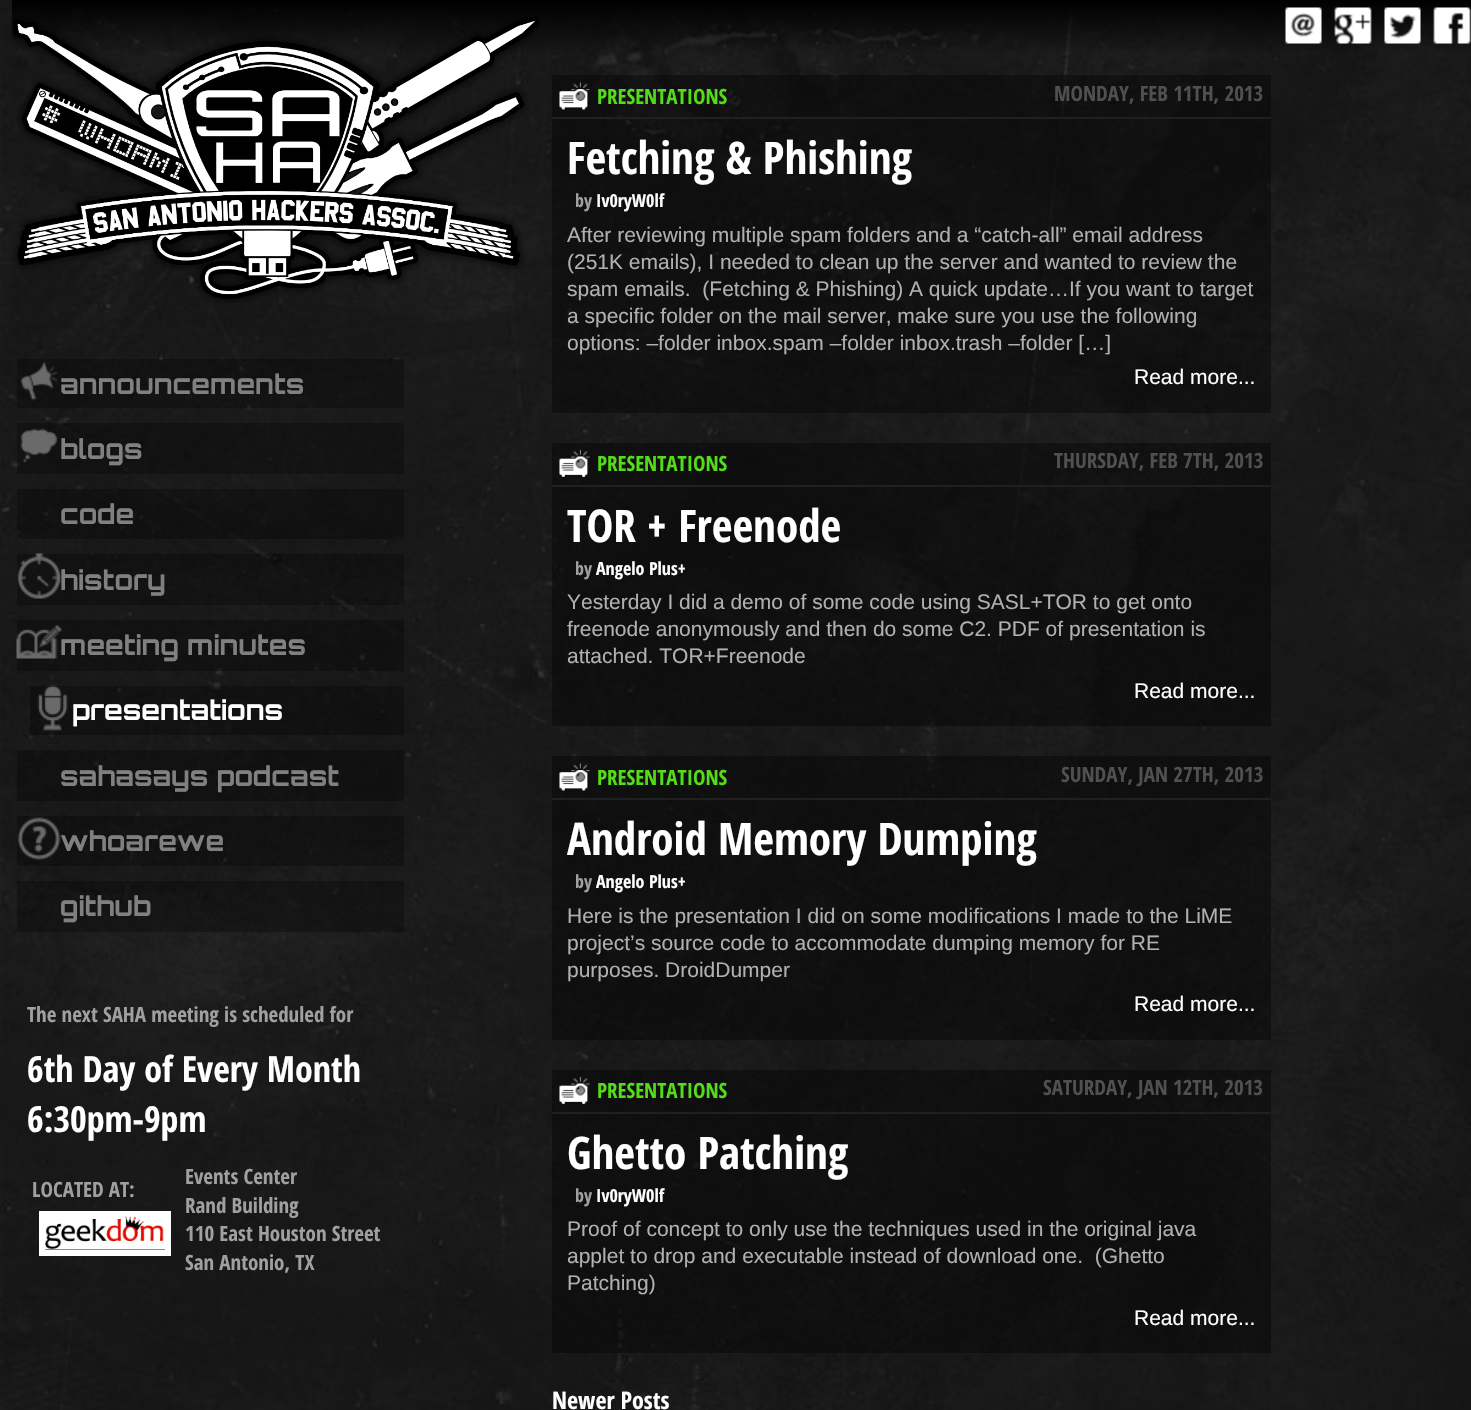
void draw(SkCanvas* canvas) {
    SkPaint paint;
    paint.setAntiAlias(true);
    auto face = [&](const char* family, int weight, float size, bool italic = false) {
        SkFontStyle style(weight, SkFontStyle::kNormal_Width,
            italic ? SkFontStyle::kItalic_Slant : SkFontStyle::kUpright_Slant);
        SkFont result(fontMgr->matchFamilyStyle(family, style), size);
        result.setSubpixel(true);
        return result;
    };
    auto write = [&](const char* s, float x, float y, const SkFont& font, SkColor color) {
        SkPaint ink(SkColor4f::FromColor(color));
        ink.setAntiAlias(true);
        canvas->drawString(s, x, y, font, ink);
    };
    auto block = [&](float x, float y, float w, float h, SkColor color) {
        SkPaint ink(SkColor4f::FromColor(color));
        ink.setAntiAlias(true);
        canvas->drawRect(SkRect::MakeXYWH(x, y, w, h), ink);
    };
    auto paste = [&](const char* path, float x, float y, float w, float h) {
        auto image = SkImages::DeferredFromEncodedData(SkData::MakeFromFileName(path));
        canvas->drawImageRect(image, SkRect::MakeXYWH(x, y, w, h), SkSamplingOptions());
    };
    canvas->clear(SK_ColorWHITE);
    paste("pic1.png", 0, 0, 1471, 1410);
    paste("pic2.png", 1285, 7, 37, 37);
    paste("pic3.png", 1334, 7, 38, 37);
    paste("pic4.png", 1384, 7, 37, 37);
    paste("pic5.png", 1433, 7, 38, 37);
    paste("pic6.png", 10, 17, 530, 286);
    block(17, 359, 387, 49, SkColorSetARGB(77, 0, 0, 0));
    paste("pic7.png", 20, 361, 38, 40);
    auto kFont1 = face("Orbitron", 700, 27);
    write("announcements", 60, 394, kFont1, SkColorSetRGB(128, 128, 128));
    block(17, 423, 387, 51, SkColorSetARGB(77, 0, 0, 0));
    paste("pic8.png", 20, 428, 38, 35);
    write("blogs", 60, 459, kFont1, SkColorSetRGB(128, 128, 128));
    block(17, 489, 387, 50, SkColorSetARGB(77, 0, 0, 0));
    write("code", 60, 524, kFont1, SkColorSetRGB(128, 128, 128));
    block(17, 554, 387, 51, SkColorSetARGB(77, 0, 0, 0));
    paste("pic9.png", 17, 553, 44, 46);
    write("history", 60, 590, kFont1, SkColorSetRGB(128, 128, 128));
    block(17, 620, 387, 51, SkColorSetARGB(77, 0, 0, 0));
    paste("pic10.png", 16, 625, 46, 34);
    write("meeting minutes", 60, 655, kFont1, SkColorSetRGB(128, 128, 128));
    block(30, 686, 374, 49, SkColorSetARGB(77, 0, 0, 0));
    paste("pic11.png", 37, 685, 31, 46);
    write("presentations", 72, 720, kFont1, SK_ColorWHITE);
    block(17, 750, 387, 51, SkColorSetARGB(77, 0, 0, 0));
    write("sahasays podcast", 60, 786, kFont1, SkColorSetRGB(128, 128, 128));
    block(17, 816, 387, 50, SkColorSetARGB(77, 0, 0, 0));
    paste("pic12.png", 17, 817, 44, 43);
    write("whoarewe", 60, 851, kFont1, SkColorSetRGB(128, 128, 128));
    block(17, 881, 387, 51, SkColorSetARGB(77, 0, 0, 0));
    write("github", 60, 916, kFont1, SkColorSetRGB(128, 128, 128));
    auto kFont2 = face("Open Sans Condensed", 700, 21);
    write("The next SAHA meeting is scheduled for", 27, 1022, kFont2, SkColorSetRGB(160, 160, 160));
    auto kFont3 = face("Open Sans Condensed", 700, 36);
    write("6th Day of Every Month", 27, 1082, kFont3, SK_ColorWHITE);
    write("6:30pm-9pm", 27, 1132, kFont3, SK_ColorWHITE);
    write("LOCATED AT:", 32, 1197, kFont2, SkColorSetRGB(160, 160, 160));
    paint.setStyle(SkPaint::kStroke_Style);
    paint.setStrokeWidth(6);
    paint.setColor(SK_ColorWHITE);
    canvas->drawRect(SkRect::MakeXYWH(42, 1214, 126, 39), paint);
    paste("pic13.png", 45, 1216, 120, 34);
    write("Events Center", 185, 1184, kFont2, SkColorSetRGB(160, 160, 160));
    write("Rand Building", 185, 1213, kFont2, SkColorSetRGB(160, 160, 160));
    write("110 East Houston Street", 185, 1241, kFont2, SkColorSetRGB(160, 160, 160));
    write("San Antonio, TX", 185, 1270, kFont2, SkColorSetRGB(160, 160, 160));
    block(552, 75, 719, 338, SkColorSetARGB(102, 0, 0, 0));
    paste("pic14.png", 559, 82, 31, 28);
    block(552, 117, 719, 2, SkColorSetRGB(32, 32, 32));
    write("PRESENTATIONS", 597, 104, kFont2, SkColorSetRGB(84, 219, 25));
    write("MONDAY, FEB 11TH, 2013", 1054, 101, kFont2, SkColorSetRGB(80, 80, 80));
    auto kFont4 = face("Open Sans Condensed", 700, 45);
    write("Fetching & Phishing", 567, 174, kFont4, SK_ColorWHITE);
    auto kFont5 = face("Open Sans Condensed", 700, 18);
    write("by", 575, 207, kFont5, SkColorSetRGB(160, 160, 160));
    write("Iv0ryW0lf", 596, 207, kFont5, SK_ColorWHITE);
    auto kFont6 = face("Liberation Sans", 400, 21);
    write("After reviewing multiple spam folders and a “catch-all” email address", 567, 242, kFont6, SkColorSetRGB(176, 176, 176));
    write("(251K emails), I needed to clean up the server and wanted to review the", 567, 269, kFont6, SkColorSetRGB(176, 176, 176));
    write("spam emails.  (Fetching & Phishing) A quick update…If you want to target", 567, 296, kFont6, SkColorSetRGB(176, 176, 176));
    write("a specific folder on the mail server, make sure you use the following", 567, 323, kFont6, SkColorSetRGB(176, 176, 176));
    write("options: –folder inbox.spam –folder inbox.trash –folder […]", 567, 350, kFont6, SkColorSetRGB(176, 176, 176));
    write("Read more...", 1134, 384, kFont6, SK_ColorWHITE);
    block(552, 443, 719, 283, SkColorSetARGB(102, 0, 0, 0));
    paste("pic15.png", 559, 450, 31, 27);
    block(552, 485, 719, 2, SkColorSetRGB(32, 32, 32));
    write("PRESENTATIONS", 597, 471, kFont2, SkColorSetRGB(84, 219, 25));
    write("THURSDAY, FEB 7TH, 2013", 1054, 468, kFont2, SkColorSetRGB(80, 80, 80));
    write("TOR + Freenode", 567, 542, kFont4, SK_ColorWHITE);
    write("by", 575, 575, kFont5, SkColorSetRGB(160, 160, 160));
    write("Angelo Plus+", 596, 575, kFont5, SK_ColorWHITE);
    write("Yesterday I did a demo of some code using SASL+TOR to get onto", 567, 609, kFont6, SkColorSetRGB(176, 176, 176));
    write("freenode anonymously and then do some C2. PDF of presentation is", 567, 636, kFont6, SkColorSetRGB(176, 176, 176));
    write("attached. TOR+Freenode", 567, 663, kFont6, SkColorSetRGB(176, 176, 176));
    write("Read more...", 1134, 698, kFont6, SK_ColorWHITE);
    block(552, 756, 719, 284, SkColorSetARGB(102, 0, 0, 0));
    paste("pic16.png", 559, 763, 31, 28);
    block(552, 798, 719, 2, SkColorSetRGB(32, 32, 32));
    write("PRESENTATIONS", 597, 785, kFont2, SkColorSetRGB(84, 219, 25));
    write("SUNDAY, JAN 27TH, 2013", 1061, 782, kFont2, SkColorSetRGB(80, 80, 80));
    write("Android Memory Dumping", 567, 855, kFont4, SK_ColorWHITE);
    write("by", 575, 888, kFont5, SkColorSetRGB(160, 160, 160));
    write("Angelo Plus+", 596, 888, kFont5, SK_ColorWHITE);
    write("Here is the presentation I did on some modifications I made to the LiME", 567, 923, kFont6, SkColorSetRGB(176, 176, 176));
    write("project’s source code to accommodate dumping memory for RE", 567, 950, kFont6, SkColorSetRGB(176, 176, 176));
    write("purposes. DroidDumper", 567, 977, kFont6, SkColorSetRGB(176, 176, 176));
    write("Read more...", 1134, 1011, kFont6, SK_ColorWHITE);
    block(552, 1070, 719, 283, SkColorSetARGB(102, 0, 0, 0));
    paste("pic17.png", 559, 1077, 31, 27);
    block(552, 1112, 719, 2, SkColorSetRGB(32, 32, 32));
    write("PRESENTATIONS", 597, 1098, kFont2, SkColorSetRGB(84, 219, 25));
    write("SATURDAY, JAN 12TH, 2013", 1043, 1095, kFont2, SkColorSetRGB(80, 80, 80));
    write("Ghetto Patching", 567, 1169, kFont4, SK_ColorWHITE);
    write("by", 575, 1202, kFont5, SkColorSetRGB(160, 160, 160));
    write("Iv0ryW0lf", 596, 1202, kFont5, SK_ColorWHITE);
    write("Proof of concept to only use the techniques used in the original java", 567, 1236, kFont6, SkColorSetRGB(176, 176, 176));
    write("applet to drop and executable instead of download one.  (Ghetto", 567, 1263, kFont6, SkColorSetRGB(176, 176, 176));
    write("Patching)", 567, 1290, kFont6, SkColorSetRGB(176, 176, 176));
    write("Read more...", 1134, 1325, kFont6, SK_ColorWHITE);
    auto kFont7 = face("Open Sans Condensed", 700, 24);
    write("Newer Posts", 552, 1409, kFont7, SK_ColorWHITE);
}
